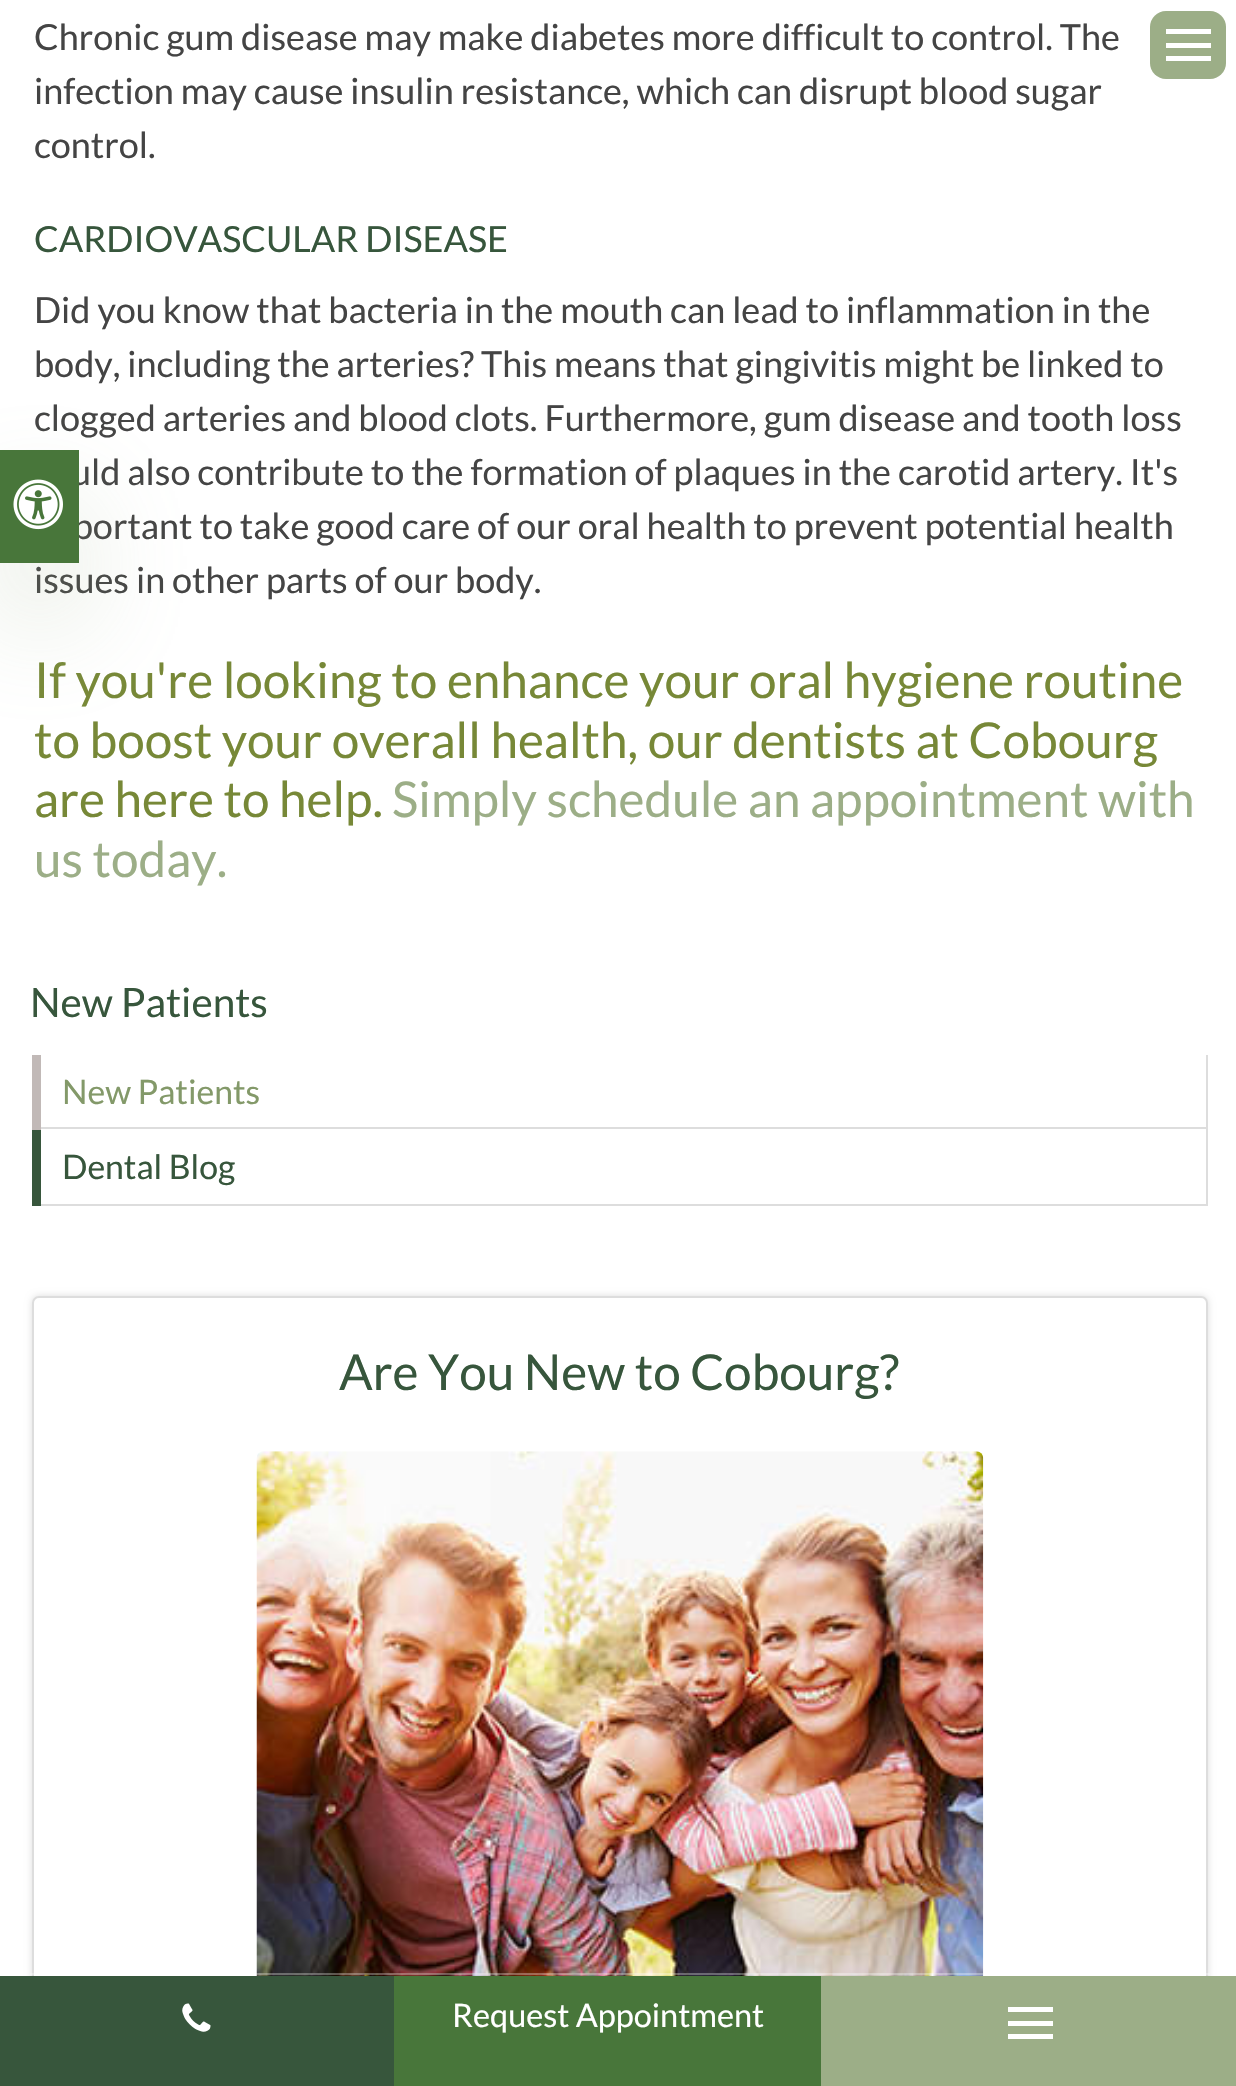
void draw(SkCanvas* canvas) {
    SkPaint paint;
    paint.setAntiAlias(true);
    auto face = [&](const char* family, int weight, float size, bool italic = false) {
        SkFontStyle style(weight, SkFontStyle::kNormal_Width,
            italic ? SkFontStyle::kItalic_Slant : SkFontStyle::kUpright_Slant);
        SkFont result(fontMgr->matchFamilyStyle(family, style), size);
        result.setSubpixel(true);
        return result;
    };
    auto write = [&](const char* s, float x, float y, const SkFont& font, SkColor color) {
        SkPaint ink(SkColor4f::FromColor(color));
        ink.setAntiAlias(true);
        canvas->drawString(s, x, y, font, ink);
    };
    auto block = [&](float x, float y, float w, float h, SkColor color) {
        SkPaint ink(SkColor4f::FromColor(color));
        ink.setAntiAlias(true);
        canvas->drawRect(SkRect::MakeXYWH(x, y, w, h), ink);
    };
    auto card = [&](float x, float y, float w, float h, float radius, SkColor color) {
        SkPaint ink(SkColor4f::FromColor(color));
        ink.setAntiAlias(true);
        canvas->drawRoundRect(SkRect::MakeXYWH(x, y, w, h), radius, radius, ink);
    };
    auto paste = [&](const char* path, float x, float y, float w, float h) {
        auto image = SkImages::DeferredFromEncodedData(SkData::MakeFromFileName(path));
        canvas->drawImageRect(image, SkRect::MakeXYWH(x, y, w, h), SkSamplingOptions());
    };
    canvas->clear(SK_ColorWHITE);
    card(1150, 11, 76, 68, 16, SkColorSetRGB(156, 174, 135));
    block(1166, 29, 45, 5, SK_ColorWHITE);
    block(1166, 43, 45, 5, SK_ColorWHITE);
    block(1166, 56, 45, 5, SK_ColorWHITE);
    auto kFont1 = face("Lato", 400, 36);
    write("Chronic gum disease may make diabetes more difficult to control. The", 34, 50, kFont1, SkColorSetRGB(68, 68, 68));
    write("infection may cause insulin resistance, which can disrupt blood sugar", 34, 104, kFont1, SkColorSetRGB(68, 68, 68));
    write("control.", 34, 158, kFont1, SkColorSetRGB(68, 68, 68));
    write("CARDIOVASCULAR DISEASE", 34, 252, kFont1, SkColorSetRGB(55, 86, 60));
    write("Did you know that bacteria in the mouth can lead to inflammation in the", 34, 323, kFont1, SkColorSetRGB(68, 68, 68));
    write("body, including the arteries? This means that gingivitis might be linked to", 34, 377, kFont1, SkColorSetRGB(68, 68, 68));
    write("clogged arteries and blood clots. Furthermore, gum disease and tooth loss", 34, 431, kFont1, SkColorSetRGB(68, 68, 68));
    write("uld also contribute to the formation of plaques in the carotid artery. It's", 71, 485, kFont1, SkColorSetRGB(68, 68, 68));
    write("portant to take good care of our oral health to prevent potential health", 73, 539, kFont1, SkColorSetRGB(68, 68, 68));
    write("issues in other parts of our body.", 34, 593, kFont1, SkColorSetRGB(68, 68, 68));
    auto kFont2 = face("Lato", 400, 49.5f);
    write("If you're looking to enhance your oral hygiene routine", 34, 698, kFont2, SkColorSetRGB(119, 136, 55));
    write("to boost your overall health, our dentists at Cobourg", 34, 758, kFont2, SkColorSetRGB(119, 136, 55));
    write("are here to help.", 34, 817, kFont2, SkColorSetRGB(119, 136, 55));
    write("Simply schedule an appointment with", 392, 817, kFont2, SkColorSetRGB(156, 174, 135));
    write("us today.", 34, 877, kFont2, SkColorSetRGB(156, 174, 135));
    auto kFont3 = face("Lato", 400, 40.5f);
    write("New Patients", 30, 1017, kFont3, SkColorSetRGB(55, 86, 60));
    block(32, 1055, 9, 75, SkColorSetRGB(193, 185, 183));
    block(1206, 1055, 2, 151, SkColorSetRGB(221, 221, 221));
    block(41, 1127, 1167, 2, SkColorSetRGB(221, 221, 221));
    auto kFont4 = face("Lato", 400, 33.75f);
    write("New Patients", 62, 1104, kFont4, SkColorSetRGB(131, 153, 105));
    block(32, 1130, 9, 76, SkColorSetRGB(55, 86, 60));
    block(41, 1204, 1167, 2, SkColorSetRGB(221, 221, 221));
    write("Dental Blog", 62, 1179, kFont4, SkColorSetRGB(55, 86, 60));
    paint.setColor(SkColorSetRGB(221, 221, 221));
    paint.setMaskFilter(SkMaskFilter::MakeBlur(kNormal_SkBlurStyle, 3.5f));
    canvas->drawRoundRect(SkRect::MakeXYWH(32, 1296, 1176, 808), 7, 7, paint);
    paint.setMaskFilter(nullptr);
    paint.setColor(SK_ColorWHITE);
    canvas->drawRoundRect(SkRect::MakeXYWH(33, 1297, 1174, 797), 6, 6, paint);
    paint.setStyle(SkPaint::kStroke_Style);
    paint.setStrokeWidth(2);
    paint.setColor(SkColorSetRGB(221, 221, 221));
    canvas->drawRoundRect(SkRect::MakeXYWH(33, 1297, 1174, 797), 6, 6, paint);
    write("Are You New to Cobourg?", 339, 1390, kFont2, SkColorSetRGB(55, 86, 60));
    paste("pic1.png", 256, 1451, 728, 525);
    paint.setStyle(SkPaint::kFill_Style);
    paint.setColor(SkColorSetARGB(77, 156, 174, 135));
    paint.setMaskFilter(SkMaskFilter::MakeBlur(kNormal_SkBlurStyle, 56));
    canvas->drawRect(SkRect::MakeXYWH(0, 506, 79, 113), paint);
    paint.setMaskFilter(nullptr);
    block(0, 450, 79, 113, SkColorSetRGB(72, 118, 58));
    paste("pic2.png", 13, 479, 50, 51);
    block(30, 1973, 1180, 2, SkColorSetARGB(77, 255, 255, 255));
    block(0, 1976, 394, 110, SkColorSetRGB(55, 86, 60));
    paste("pic3.png", 182, 2003, 29, 29);
    block(394, 1976, 427, 110, SkColorSetRGB(72, 118, 58));
    auto kFont5 = face("Lato", 400, 32.5f);
    write("Request Appointment", 452, 2027, kFont5, SK_ColorWHITE);
    block(821, 1976, 415, 110, SkColorSetRGB(156, 174, 135));
    block(1008, 2007, 45, 5, SK_ColorWHITE);
    block(1008, 2021, 45, 5, SK_ColorWHITE);
    block(1008, 2034, 45, 5, SK_ColorWHITE);
}
